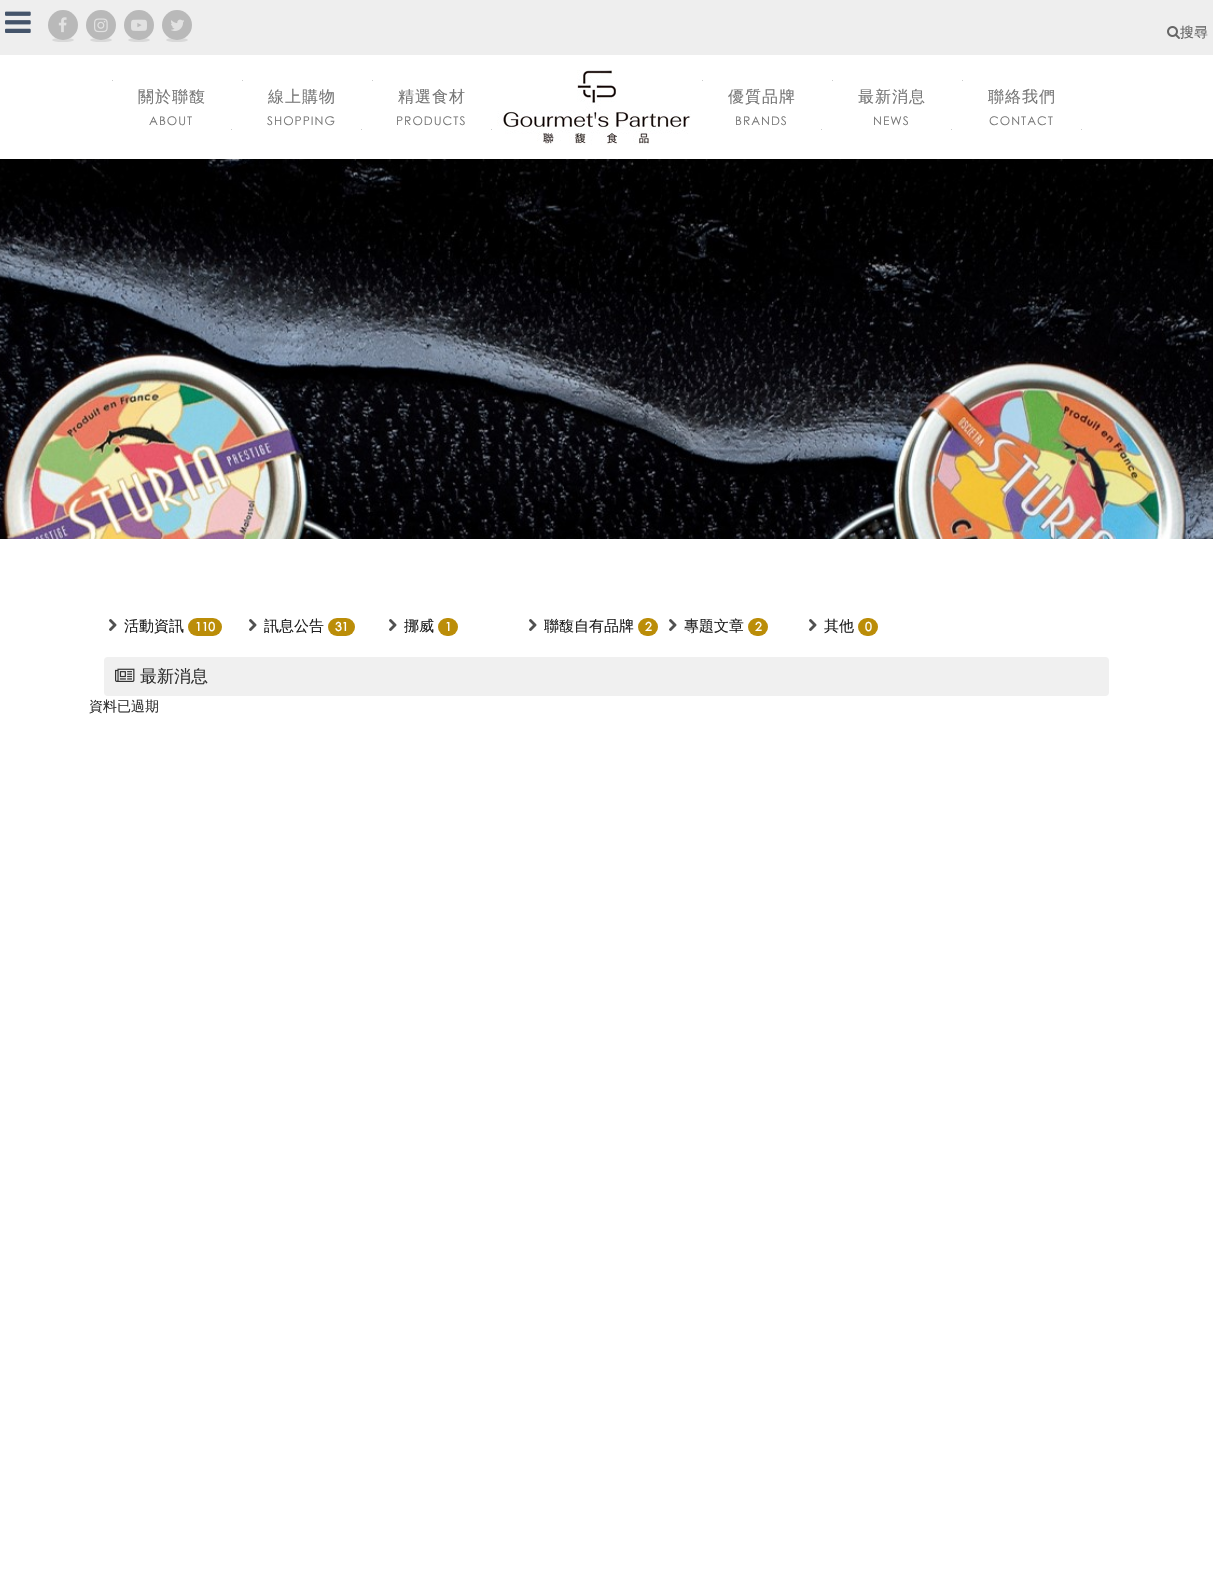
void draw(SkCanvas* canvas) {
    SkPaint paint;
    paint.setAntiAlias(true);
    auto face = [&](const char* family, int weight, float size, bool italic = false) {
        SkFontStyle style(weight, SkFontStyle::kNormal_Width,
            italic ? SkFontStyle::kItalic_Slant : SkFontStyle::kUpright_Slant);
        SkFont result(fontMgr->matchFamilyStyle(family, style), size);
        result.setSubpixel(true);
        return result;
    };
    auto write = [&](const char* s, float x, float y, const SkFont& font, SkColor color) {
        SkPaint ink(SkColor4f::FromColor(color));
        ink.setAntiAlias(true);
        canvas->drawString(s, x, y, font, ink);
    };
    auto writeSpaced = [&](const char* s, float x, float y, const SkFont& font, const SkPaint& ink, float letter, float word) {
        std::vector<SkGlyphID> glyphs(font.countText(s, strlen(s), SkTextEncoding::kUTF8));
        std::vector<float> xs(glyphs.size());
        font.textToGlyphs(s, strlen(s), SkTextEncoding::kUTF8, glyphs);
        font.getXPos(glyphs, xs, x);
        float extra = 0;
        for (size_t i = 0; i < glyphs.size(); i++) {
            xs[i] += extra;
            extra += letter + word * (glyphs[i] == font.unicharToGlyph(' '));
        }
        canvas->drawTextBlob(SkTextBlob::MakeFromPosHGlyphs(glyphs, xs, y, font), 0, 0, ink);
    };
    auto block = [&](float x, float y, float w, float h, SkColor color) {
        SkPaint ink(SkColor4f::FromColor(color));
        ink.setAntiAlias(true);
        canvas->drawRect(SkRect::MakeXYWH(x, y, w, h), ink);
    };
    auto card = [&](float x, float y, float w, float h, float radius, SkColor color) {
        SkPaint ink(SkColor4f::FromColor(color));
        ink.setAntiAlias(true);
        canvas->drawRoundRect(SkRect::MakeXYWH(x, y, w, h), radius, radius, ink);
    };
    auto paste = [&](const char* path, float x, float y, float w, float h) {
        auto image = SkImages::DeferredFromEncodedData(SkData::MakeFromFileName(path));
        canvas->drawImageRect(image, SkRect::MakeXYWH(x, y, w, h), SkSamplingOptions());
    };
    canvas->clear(SK_ColorWHITE);
    block(0, 0, 1213, 55, SkColorSetRGB(238, 238, 238));
    paste("pic1.png", 5, 11, 26, 22);
    paint.setColor(SkColorSetRGB(216, 216, 216));
    canvas->drawOval(SkRect::MakeXYWH(52, 38, 22, 4), paint);
    paint.setColor(SkColorSetRGB(185, 185, 185));
    canvas->drawCircle(63, 25, 15, paint);
    paste("pic2.png", 58, 17, 9, 16);
    paint.setColor(SkColorSetRGB(216, 216, 216));
    canvas->drawOval(SkRect::MakeXYWH(90, 38, 22, 4), paint);
    paint.setColor(SkColorSetRGB(185, 185, 185));
    canvas->drawCircle(101, 25, 15, paint);
    paste("pic3.png", 94, 18, 14, 15);
    paint.setColor(SkColorSetRGB(216, 216, 216));
    canvas->drawOval(SkRect::MakeXYWH(128, 38, 22, 4), paint);
    paint.setColor(SkColorSetRGB(185, 185, 185));
    canvas->drawCircle(139, 25, 15, paint);
    paste("pic4.png", 131, 19, 16, 12);
    paint.setColor(SkColorSetRGB(216, 216, 216));
    canvas->drawOval(SkRect::MakeXYWH(166, 38, 22, 4), paint);
    paint.setColor(SkColorSetRGB(185, 185, 185));
    canvas->drawCircle(177, 25, 15, paint);
    paste("pic5.png", 171, 19, 13, 12);
    paste("pic6.png", 1167, 26, 13, 13);
    auto kFont1 = face("WenQuanYi Zen Hei", 500, 14);
    write("搜尋", 1180, 37, kFont1, SkColorSetRGB(102, 102, 102));
    block(112, 80, 1, 1, SkColorSetRGB(204, 204, 204));
    auto kFont2 = face("WenQuanYi Zen Hei", 500, 16);
    paint.setColor(SkColorSetRGB(119, 119, 119));
    writeSpaced("關於聯馥", 138, 102, kFont2, paint, 1, 0);
    auto kFont3 = face("Century Gothic", 400, 12);
    writeSpaced("ABOUT", 149, 125, kFont3, paint, 1, 0);
    block(231, 129, 1, 1, SkColorSetRGB(204, 204, 204));
    block(242, 80, 1, 1, SkColorSetRGB(204, 204, 204));
    writeSpaced("線上購物", 268, 102, kFont2, paint, 1, 0);
    writeSpaced("SHOPPING", 267, 125, kFont3, paint, 1, 0);
    block(361, 129, 1, 1, SkColorSetRGB(204, 204, 204));
    block(372, 80, 1, 1, SkColorSetRGB(204, 204, 204));
    writeSpaced("精選食材", 398, 102, kFont2, paint, 1, 0);
    writeSpaced("PRODUCTS", 396, 125, kFont3, paint, 1, 0);
    block(491, 129, 1, 1, SkColorSetRGB(204, 204, 204));
    paste("pic7.png", 497, 70, 194, 75);
    block(702, 80, 1, 1, SkColorSetRGB(204, 204, 204));
    writeSpaced("優質品牌", 728, 102, kFont2, paint, 1, 0);
    writeSpaced("BRANDS", 735, 125, kFont3, paint, 1, 0);
    block(821, 129, 1, 1, SkColorSetRGB(204, 204, 204));
    block(832, 80, 1, 1, SkColorSetRGB(204, 204, 204));
    writeSpaced("最新消息", 858, 102, kFont2, paint, 1, 0);
    writeSpaced("NEWS", 873, 125, kFont3, paint, 1, 0);
    block(951, 129, 1, 1, SkColorSetRGB(204, 204, 204));
    block(962, 80, 1, 1, SkColorSetRGB(204, 204, 204));
    writeSpaced("聯絡我們", 988, 102, kFont2, paint, 1, 0);
    writeSpaced("CONTACT", 989, 125, kFont3, paint, 1, 0);
    block(1081, 129, 1, 1, SkColorSetRGB(204, 204, 204));
    paste("pic8.png", 0, 159, 1213, 380);
    paste("pic9.png", 109, 619, 8, 12);
    auto kFont4 = face("WenQuanYi Zen Hei", 500, 15);
    write("活動資訊", 124, 631, kFont4, SkColorSetRGB(32, 32, 32));
    card(188, 618, 34, 18, 9, SkColorSetRGB(187, 141, 8));
    auto kFont5 = face("Century Gothic", 700, 12);
    write("110", 195, 631, kFont5, SK_ColorWHITE);
    paste("pic9.png", 249, 619, 8, 12);
    write("訊息公告", 264, 631, kFont4, SkColorSetRGB(32, 32, 32));
    card(328, 618, 27, 18, 9, SkColorSetRGB(187, 141, 8));
    write("31", 335, 631, kFont5, SK_ColorWHITE);
    paste("pic9.png", 389, 619, 8, 12);
    write("挪威", 404, 631, kFont4, SkColorSetRGB(32, 32, 32));
    card(438, 618, 20, 18, 9, SkColorSetRGB(187, 141, 8));
    write("1", 445, 631, kFont5, SK_ColorWHITE);
    paste("pic9.png", 529, 619, 8, 12);
    write("聯馥自有品牌", 544, 631, kFont4, SkColorSetRGB(32, 32, 32));
    card(638, 618, 20, 18, 9, SkColorSetRGB(187, 141, 8));
    write("2", 645, 631, kFont5, SK_ColorWHITE);
    paste("pic9.png", 669, 619, 8, 12);
    write("專題文章", 684, 631, kFont4, SkColorSetRGB(32, 32, 32));
    card(748, 618, 20, 18, 9, SkColorSetRGB(187, 141, 8));
    write("2", 755, 631, kFont5, SK_ColorWHITE);
    paste("pic9.png", 809, 619, 8, 12);
    write("其他", 824, 631, kFont4, SkColorSetRGB(32, 32, 32));
    card(858, 618, 20, 18, 9, SkColorSetRGB(187, 141, 8));
    write("0", 865, 631, kFont5, SK_ColorWHITE);
    card(104, 657, 1005, 39, 4, SkColorSetRGB(240, 240, 240));
    paste("pic10.png", 115, 668, 20, 14);
    auto kFont6 = face("WenQuanYi Zen Hei", 500, 17);
    write("最新消息", 140, 682, kFont6, SkColorSetRGB(51, 51, 51));
    write("資料已過期", 89, 711, kFont1, SkColorSetRGB(51, 51, 51));
}
